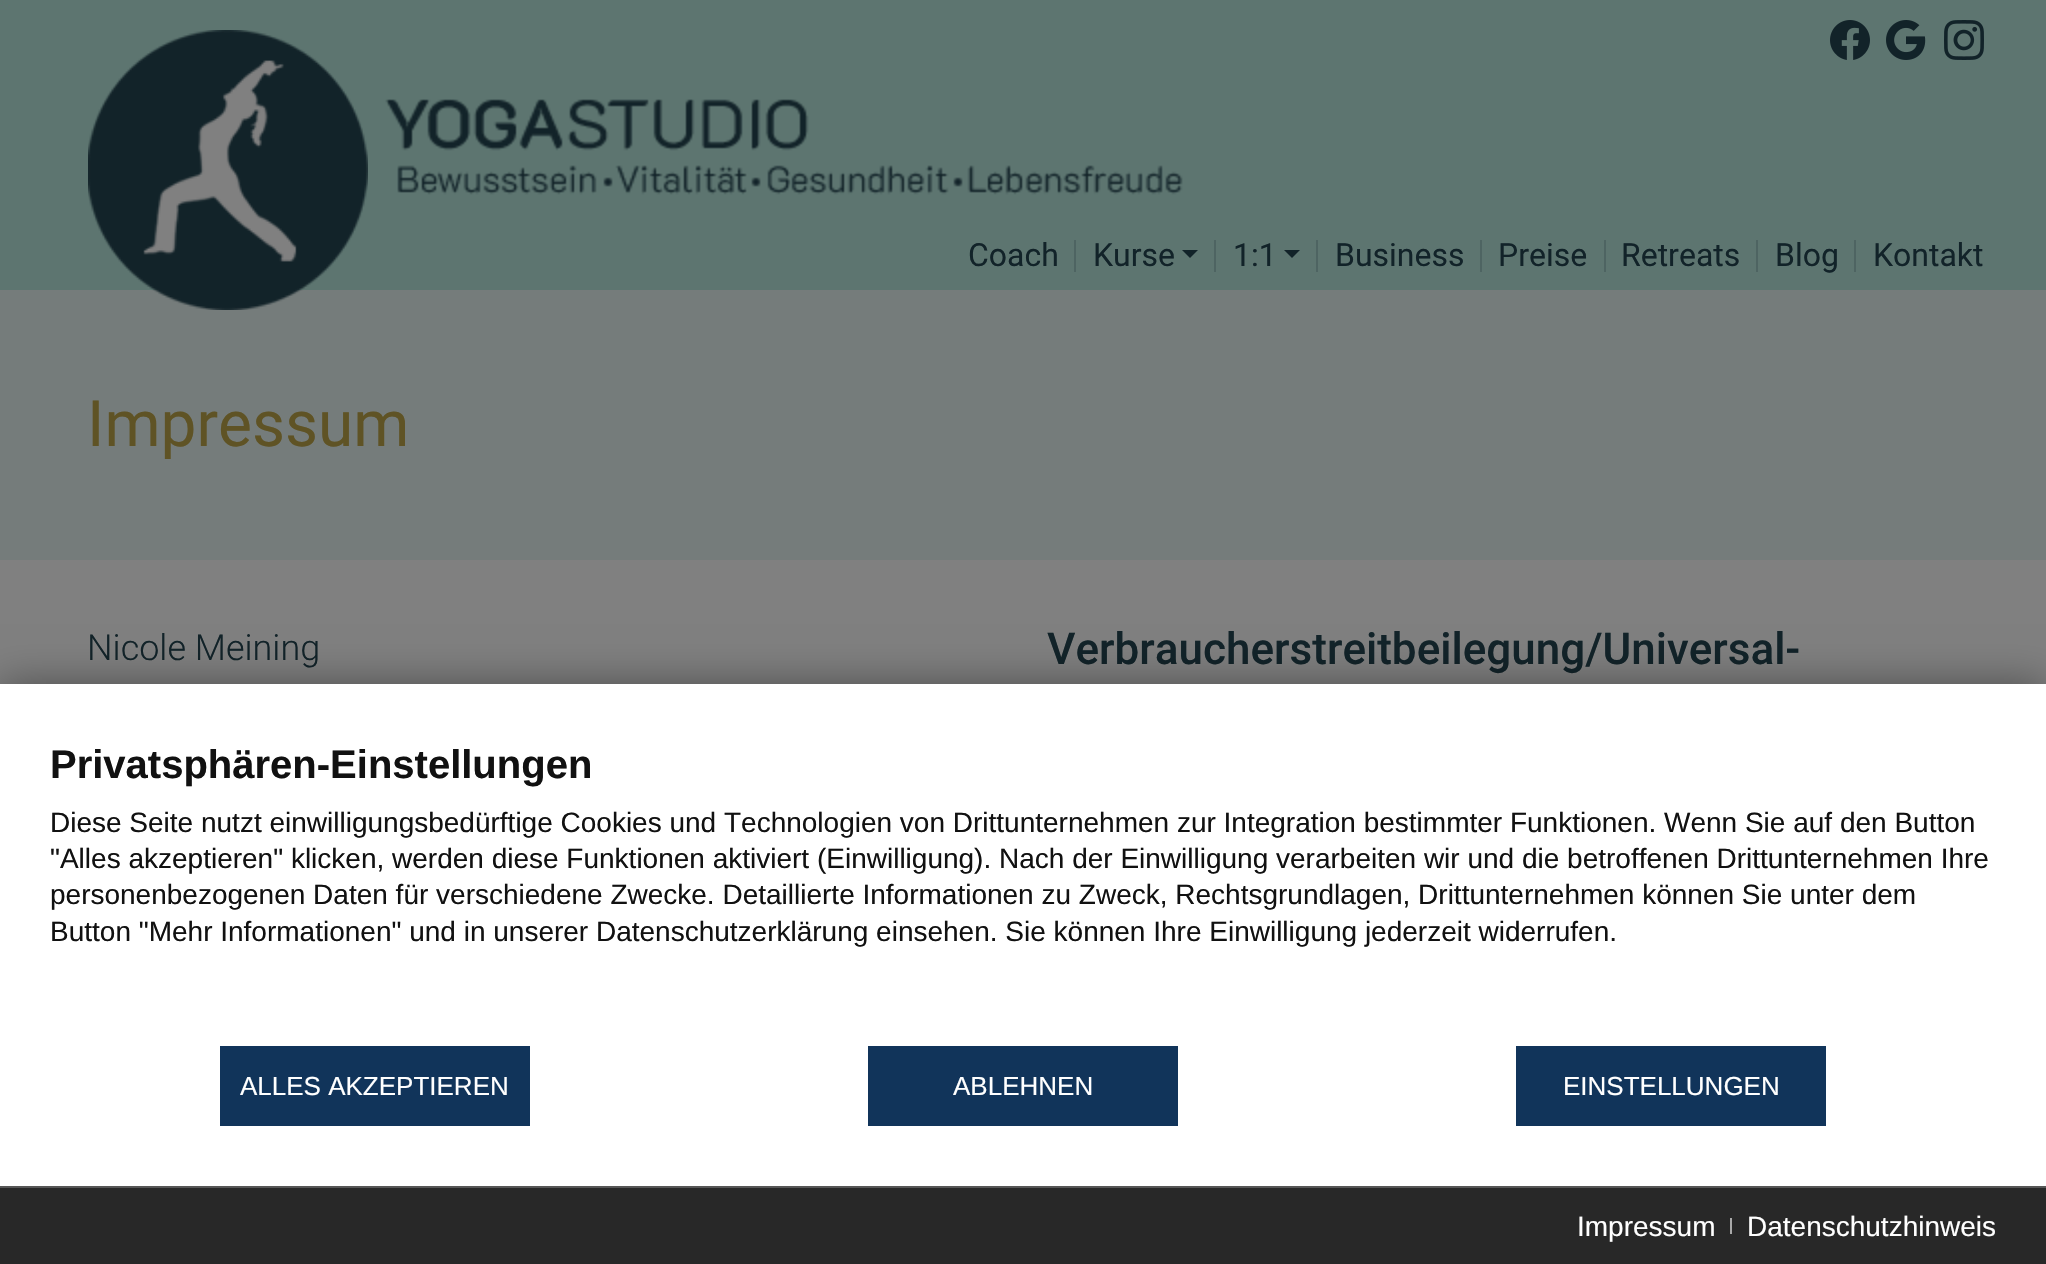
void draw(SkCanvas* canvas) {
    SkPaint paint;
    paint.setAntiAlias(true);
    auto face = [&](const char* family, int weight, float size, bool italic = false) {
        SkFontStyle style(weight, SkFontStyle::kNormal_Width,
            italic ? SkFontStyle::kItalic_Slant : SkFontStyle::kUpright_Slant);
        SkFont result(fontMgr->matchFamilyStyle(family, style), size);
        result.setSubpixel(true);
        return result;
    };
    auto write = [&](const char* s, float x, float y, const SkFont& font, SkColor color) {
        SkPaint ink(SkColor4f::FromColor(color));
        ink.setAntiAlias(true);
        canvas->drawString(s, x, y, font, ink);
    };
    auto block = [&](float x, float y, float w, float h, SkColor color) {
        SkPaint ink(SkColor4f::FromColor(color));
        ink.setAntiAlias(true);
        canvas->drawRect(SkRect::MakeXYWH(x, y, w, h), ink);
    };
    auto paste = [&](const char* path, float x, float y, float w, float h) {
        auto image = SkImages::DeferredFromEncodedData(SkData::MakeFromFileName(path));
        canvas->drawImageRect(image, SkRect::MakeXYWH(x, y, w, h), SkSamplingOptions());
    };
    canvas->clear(SkColorSetRGB(128, 128, 128));
    block(0, 0, 2046, 290, SkColorSetRGB(93, 117, 112));
    paste("pic1.png", 385, 99, 798, 96);
    block(0, 290, 2046, 270, SkColorSetRGB(117, 124, 123));
    paste("pic2.png", 88, 30, 280, 280);
    paste("pic3.png", 1830, 20, 40, 40);
    paste("pic4.png", 1886, 20, 40, 40);
    paste("pic5.png", 1944, 20, 40, 40);
    block(1074, 240, 2, 32, SkColorSetRGB(78, 100, 98));
    auto kFont1 = face("Roboto", 400, 32);
    write("Coach", 968, 266, kFont1, SkColorSetRGB(18, 35, 41));
    block(1214, 240, 2, 32, SkColorSetRGB(78, 100, 98));
    write("Kurse", 1093, 266, kFont1, SkColorSetRGB(18, 35, 41));
    paint.setColor(SkColorSetRGB(18, 35, 41));
    canvas->drawPath(SkPathBuilder().moveTo(1182, 250).lineTo(1198, 250).lineTo(1190, 258).close().detach(), paint);
    block(1316, 240, 2, 32, SkColorSetRGB(78, 100, 98));
    write("1:1", 1233, 266, kFont1, SkColorSetRGB(18, 35, 41));
    canvas->drawPath(SkPathBuilder().moveTo(1284, 250).lineTo(1300, 250).lineTo(1292, 258).close().detach(), paint);
    block(1480, 240, 2, 32, SkColorSetRGB(78, 100, 98));
    write("Business", 1335, 266, kFont1, SkColorSetRGB(18, 35, 41));
    block(1604, 240, 2, 32, SkColorSetRGB(78, 100, 98));
    write("Preise", 1498, 266, kFont1, SkColorSetRGB(18, 35, 41));
    block(1756, 240, 2, 32, SkColorSetRGB(78, 100, 98));
    write("Retreats", 1621, 266, kFont1, SkColorSetRGB(18, 35, 41));
    block(1854, 240, 2, 32, SkColorSetRGB(78, 100, 98));
    write("Blog", 1775, 266, kFont1, SkColorSetRGB(18, 35, 41));
    write("Kontakt", 1873, 266, kFont1, SkColorSetRGB(18, 35, 41));
    auto kFont2 = face("Roboto", 400, 64);
    write("Impressum", 87, 446, kFont2, SkColorSetRGB(95, 83, 37));
    auto kFont3 = face("Roboto", 300, 36);
    write("Nicole Meining", 87, 660, kFont3, SkColorSetRGB(18, 35, 41));
    auto kFont4 = face("Roboto", 500, 44);
    write("Verbraucherstreitbeilegung/Universal-", 1047, 664, kFont4, SkColorSetRGB(18, 35, 41));
    paint.setColor(SkColorSetARGB(102, 0, 0, 0));
    paint.setMaskFilter(SkMaskFilter::MakeBlur(kNormal_SkBlurStyle, 20));
    canvas->drawRect(SkRect::MakeXYWH(0, 684, 2046, 580), paint);
    paint.setMaskFilter(nullptr);
    block(0, 684, 2046, 502, SK_ColorWHITE);
    block(0, 1186, 2046, 2, SkColorSetRGB(86, 86, 86));
    auto kFont5 = face("Liberation Sans", 700, 40);
    write("Privatsphären-Einstellungen", 50, 778, kFont5, SkColorSetRGB(17, 17, 17));
    auto kFont6 = face("Liberation Sans", 400, 28);
    write("Diese Seite nutzt einwilligungsbedürftige Cookies und Technologien von Drittunternehmen zur Integration bestimmter Funktionen. Wenn Sie auf den Button", 50, 832, kFont6, SkColorSetRGB(17, 17, 17));
    write("\"Alles akzeptieren\" klicken, werden diese Funktionen aktiviert (Einwilligung). Nach der Einwilligung verarbeiten wir und die betroffenen Drittunternehmen Ihre", 50, 868, kFont6, SkColorSetRGB(17, 17, 17));
    write("personenbezogenen Daten für verschiedene Zwecke. Detaillierte Informationen zu Zweck, Rechtsgrundlagen, Drittunternehmen können Sie unter dem", 50, 904, kFont6, SkColorSetRGB(17, 17, 17));
    write("Button \"Mehr Informationen\" und in unserer Datenschutzerklärung einsehen. Sie können Ihre Einwilligung jederzeit widerrufen.", 50, 941, kFont6, SkColorSetRGB(17, 17, 17));
    block(220, 1046, 310, 80, SkColorSetRGB(17, 52, 90));
    auto kFont7 = face("Liberation Sans", 400, 26);
    write("ALLES AKZEPTIEREN", 240, 1095, kFont7, SK_ColorWHITE);
    block(868, 1046, 310, 80, SkColorSetRGB(17, 52, 90));
    write("ABLEHNEN", 953, 1095, kFont7, SK_ColorWHITE);
    block(1516, 1046, 310, 80, SkColorSetRGB(17, 52, 90));
    write("EINSTELLUNGEN", 1563, 1095, kFont7, SK_ColorWHITE);
    block(0, 1188, 2046, 76, SkColorSetRGB(40, 40, 40));
    write("Impressum", 1577, 1236, kFont6, SK_ColorWHITE);
    block(1730, 1218, 2, 16, SkColorSetRGB(169, 169, 169));
    write("Datenschutzhinweis", 1747, 1236, kFont6, SK_ColorWHITE);
}
